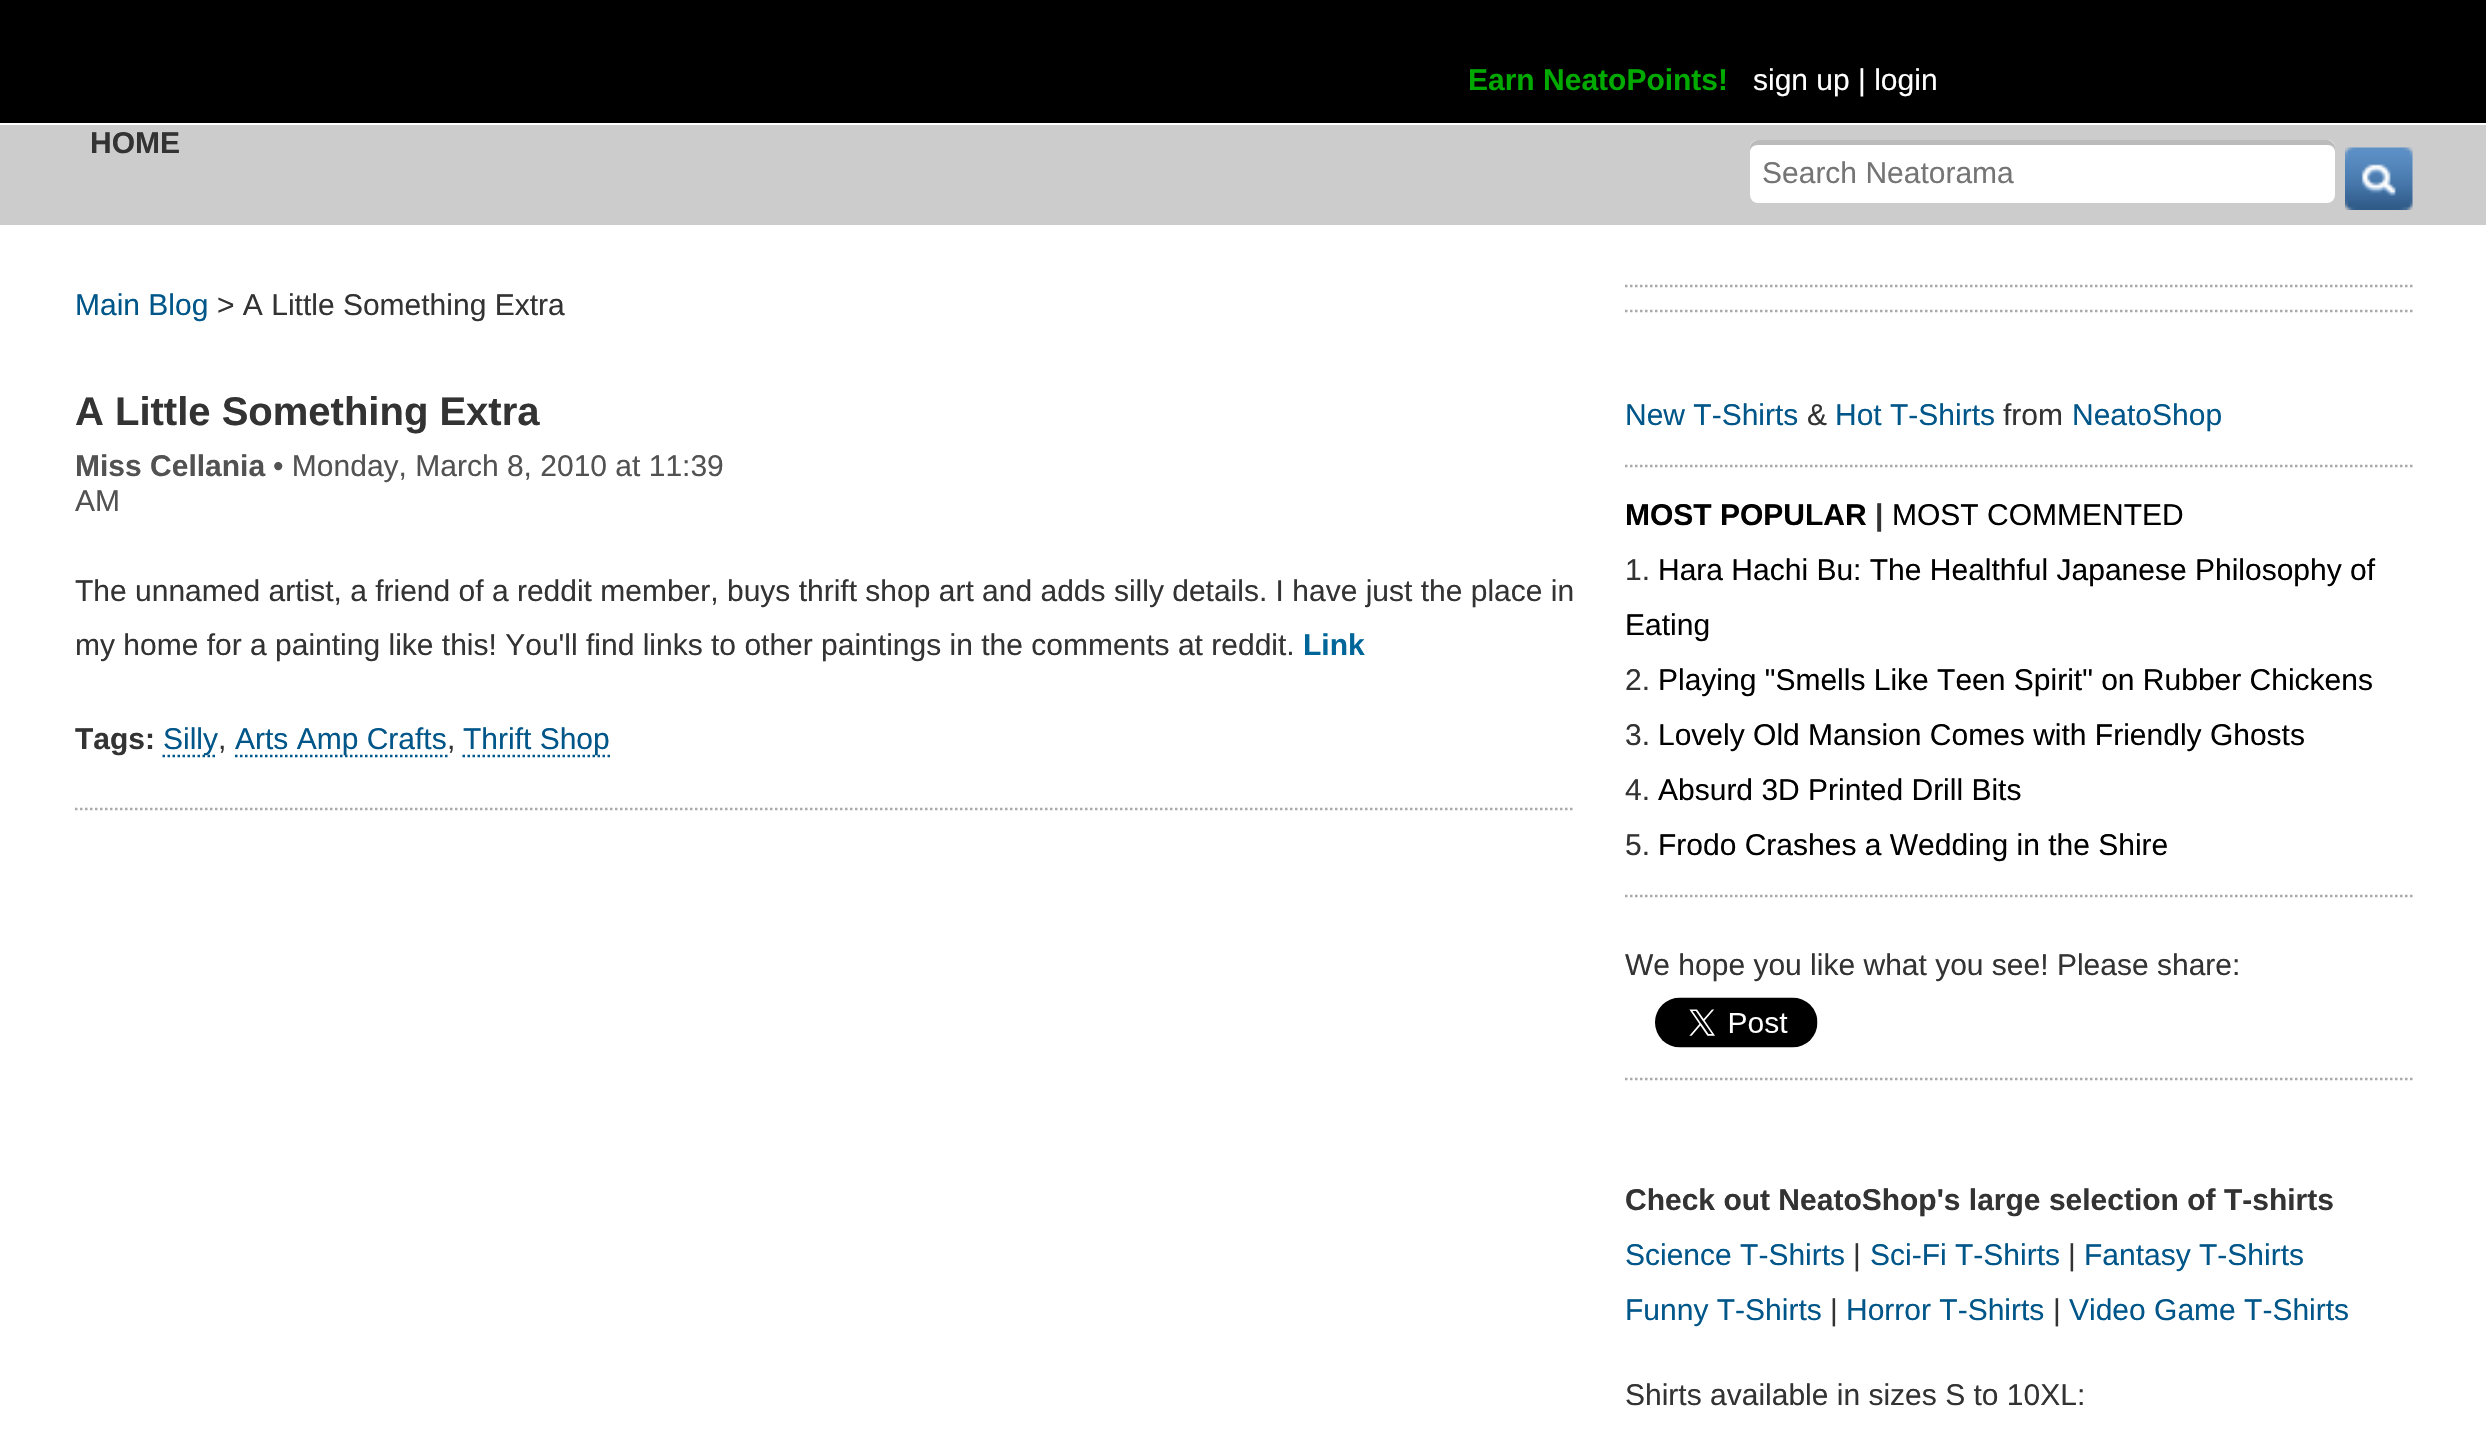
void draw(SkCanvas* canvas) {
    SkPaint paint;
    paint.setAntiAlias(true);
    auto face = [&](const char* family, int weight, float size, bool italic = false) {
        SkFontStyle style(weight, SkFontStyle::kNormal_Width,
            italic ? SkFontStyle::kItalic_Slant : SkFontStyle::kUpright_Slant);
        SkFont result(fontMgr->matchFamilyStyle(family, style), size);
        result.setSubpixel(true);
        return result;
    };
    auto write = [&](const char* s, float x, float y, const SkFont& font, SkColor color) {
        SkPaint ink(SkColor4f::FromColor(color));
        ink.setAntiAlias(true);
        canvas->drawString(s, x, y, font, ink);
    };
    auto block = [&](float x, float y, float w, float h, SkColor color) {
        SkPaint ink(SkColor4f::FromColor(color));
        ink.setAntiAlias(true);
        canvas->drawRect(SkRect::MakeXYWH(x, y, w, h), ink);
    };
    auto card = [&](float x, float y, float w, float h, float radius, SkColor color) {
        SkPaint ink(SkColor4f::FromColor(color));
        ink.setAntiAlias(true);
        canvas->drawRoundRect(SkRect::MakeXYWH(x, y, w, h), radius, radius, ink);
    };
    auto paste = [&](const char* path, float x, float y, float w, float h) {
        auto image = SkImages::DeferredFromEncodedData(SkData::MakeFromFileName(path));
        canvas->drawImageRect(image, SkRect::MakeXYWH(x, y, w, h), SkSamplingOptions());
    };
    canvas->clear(SK_ColorWHITE);
    block(0, 0, 2486, 123, SK_ColorBLACK);
    auto kFont1 = face("Liberation Sans", 700, 30);
    write("Earn NeatoPoints!", 1468, 90, kFont1, SkColorSetRGB(0, 170, 0));
    auto kFont2 = face("Liberation Sans", 400, 30);
    write("sign up | login", 1753, 90, kFont2, SK_ColorWHITE);
    block(0, 125, 2486, 100, SkColorSetRGB(204, 204, 204));
    write("HOME", 90, 153, kFont1, SkColorSetRGB(51, 51, 51));
    card(1750, 140, 585, 63, 8, SK_ColorWHITE);
    paint.setColor(SkColorSetRGB(187, 187, 187));
    canvas->drawPath(SkPathBuilder().moveTo(1758, 145).lineTo(2328, 145).cubicTo(2332, 145, 2335, 148, 2335, 152).lineTo(2335, 148).cubicTo(2335, 144, 2331, 140, 2327, 140).lineTo(1758, 140).cubicTo(1754, 140, 1750, 144, 1750, 148).lineTo(1750, 152).cubicTo(1750, 148, 1753, 145, 1758, 145).close().detach(), paint);
    write("Search Neatorama", 1762, 183, kFont2, SkColorSetRGB(117, 117, 117));
    paste("pic1.png", 2345, 147, 68, 63);
    write("Main Blog", 75, 315, kFont2, SkColorSetRGB(0, 86, 137));
    write("> A Little Something Extra", 217, 315, kFont2, SkColorSetRGB(51, 51, 51));
    auto kFont3 = face("Liberation Sans", 700, 40);
    write("A Little Something Extra", 75, 425, kFont3, SkColorSetRGB(51, 51, 51));
    write("Miss Cellania", 75, 476, kFont1, SkColorSetRGB(82, 82, 82));
    write("• Monday, March 8, 2010 at 11:39", 273, 476, kFont2, SkColorSetRGB(82, 82, 82));
    write("AM", 75, 511, kFont2, SkColorSetRGB(82, 82, 82));
    write("The unnamed artist, a friend of a reddit member, buys thrift shop art and adds silly details. I have just the place in", 75, 601, kFont2, SkColorSetRGB(51, 51, 51));
    write("my home for a painting like this! You'll find links to other paintings in the comments at reddit.", 75, 655, kFont2, SkColorSetRGB(51, 51, 51));
    write("Link", 1303, 655, kFont1, SkColorSetRGB(0, 102, 153));
    write("Tags:", 75, 749, kFont1, SkColorSetRGB(51, 51, 51));
    paint.setStyle(SkPaint::kStroke_Style);
    paint.setStrokeWidth(2.5f);
    paint.setColor(SkColorSetRGB(0, 86, 137));
    paint.setPathEffect(SkDashPathEffect::Make({{2.5f, 2.5f}}, 0));
    canvas->drawPath(SkPathBuilder().moveTo(162.5f, 756).lineTo(217.5f, 756).detach(), paint);
    paint.setPathEffect(nullptr);
    write("Silly", 163, 749, kFont2, SkColorSetRGB(0, 86, 137));
    write(",", 218, 749, kFont2, SkColorSetRGB(51, 51, 51));
    paint.setPathEffect(SkDashPathEffect::Make({{2.5f, 2.5f}}, 0));
    canvas->drawPath(SkPathBuilder().moveTo(235, 756).lineTo(447.5f, 756).detach(), paint);
    paint.setPathEffect(nullptr);
    write("Arts Amp Crafts", 235, 749, kFont2, SkColorSetRGB(0, 86, 137));
    write(",", 447, 749, kFont2, SkColorSetRGB(51, 51, 51));
    paint.setPathEffect(SkDashPathEffect::Make({{2.5f, 2.5f}}, 0));
    canvas->drawPath(SkPathBuilder().moveTo(462.5f, 756).lineTo(610, 756).detach(), paint);
    paint.setPathEffect(nullptr);
    write("Thrift Shop", 463, 749, kFont2, SkColorSetRGB(0, 86, 137));
    paint.setColor(SkColorSetRGB(170, 170, 170));
    paint.setPathEffect(SkDashPathEffect::Make({{2.5f, 2.5f}}, 0));
    canvas->drawPath(SkPathBuilder().moveTo(75, 809).lineTo(1575, 809).detach(), paint);
    paint.setPathEffect(nullptr);
    paint.setPathEffect(SkDashPathEffect::Make({{2.5f, 2.5f}}, 0));
    canvas->drawPath(SkPathBuilder().moveTo(1625, 286).lineTo(2412.5f, 286).detach(), paint);
    paint.setPathEffect(nullptr);
    paint.setPathEffect(SkDashPathEffect::Make({{2.5f, 2.5f}}, 0));
    canvas->drawPath(SkPathBuilder().moveTo(1625, 311).lineTo(2412.5f, 311).detach(), paint);
    paint.setPathEffect(nullptr);
    write("New T-Shirts", 1625, 425, kFont2, SkColorSetRGB(0, 86, 137));
    write("&", 1807, 425, kFont2, SkColorSetRGB(51, 51, 51));
    write("Hot T-Shirts", 1835, 425, kFont2, SkColorSetRGB(0, 86, 137));
    write("from", 2003, 425, kFont2, SkColorSetRGB(51, 51, 51));
    write("NeatoShop", 2072, 425, kFont2, SkColorSetRGB(0, 86, 137));
    paint.setPathEffect(SkDashPathEffect::Make({{2.5f, 2.5f}}, 0));
    canvas->drawPath(SkPathBuilder().moveTo(1625, 466).lineTo(2412.5f, 466).detach(), paint);
    paint.setPathEffect(nullptr);
    write("MOST POPULAR", 1625, 525, kFont1, SK_ColorBLACK);
    write("|", 1875, 525, kFont1, SkColorSetRGB(51, 51, 51));
    write("MOST COMMENTED", 1892, 525, kFont2, SK_ColorBLACK);
    write("1.", 1625, 580, kFont2, SkColorSetRGB(51, 51, 51));
    write("Hara Hachi Bu: The Healthful Japanese Philosophy of", 1658, 580, kFont2, SK_ColorBLACK);
    write("Eating", 1625, 635, kFont2, SK_ColorBLACK);
    write("2.", 1625, 690, kFont2, SkColorSetRGB(51, 51, 51));
    write("Playing \"Smells Like Teen Spirit\" on Rubber Chickens", 1658, 690, kFont2, SK_ColorBLACK);
    write("3.", 1625, 745, kFont2, SkColorSetRGB(51, 51, 51));
    write("Lovely Old Mansion Comes with Friendly Ghosts", 1658, 745, kFont2, SK_ColorBLACK);
    write("4.", 1625, 800, kFont2, SkColorSetRGB(51, 51, 51));
    write("Absurd 3D Printed Drill Bits", 1658, 800, kFont2, SK_ColorBLACK);
    write("5.", 1625, 855, kFont2, SkColorSetRGB(51, 51, 51));
    write("Frodo Crashes a Wedding in the Shire", 1658, 855, kFont2, SK_ColorBLACK);
    paint.setPathEffect(SkDashPathEffect::Make({{2.5f, 2.5f}}, 0));
    canvas->drawPath(SkPathBuilder().moveTo(1625, 896).lineTo(2412.5f, 896).detach(), paint);
    paint.setPathEffect(nullptr);
    write("We hope you like what you see! Please share:", 1625, 975, kFont2, SkColorSetRGB(51, 51, 51));
    paste("pic2.png", 1655, 997, 163, 51);
    paint.setPathEffect(SkDashPathEffect::Make({{2.5f, 2.5f}}, 0));
    canvas->drawPath(SkPathBuilder().moveTo(1625, 1079).lineTo(2412.5f, 1079).detach(), paint);
    paint.setPathEffect(nullptr);
    write("Check out NeatoShop's large selection of T-shirts", 1625, 1210, kFont1, SkColorSetRGB(51, 51, 51));
    write("Science T-Shirts", 1625, 1265, kFont2, SkColorSetRGB(0, 86, 137));
    write("|", 1853, 1265, kFont2, SkColorSetRGB(51, 51, 51));
    write("Sci-Fi T-Shirts", 1870, 1265, kFont2, SkColorSetRGB(0, 86, 137));
    write("|", 2068, 1265, kFont2, SkColorSetRGB(51, 51, 51));
    write("Fantasy T-Shirts", 2084, 1265, kFont2, SkColorSetRGB(0, 86, 137));
    write("Funny T-Shirts", 1625, 1320, kFont2, SkColorSetRGB(0, 86, 137));
    write("|", 1830, 1320, kFont2, SkColorSetRGB(51, 51, 51));
    write("Horror T-Shirts", 1846, 1320, kFont2, SkColorSetRGB(0, 86, 137));
    write("|", 2053, 1320, kFont2, SkColorSetRGB(51, 51, 51));
    write("Video Game T-Shirts", 2069, 1320, kFont2, SkColorSetRGB(0, 86, 137));
    write("Shirts available in sizes S to 10XL:", 1625, 1405, kFont2, SkColorSetRGB(51, 51, 51));
}
